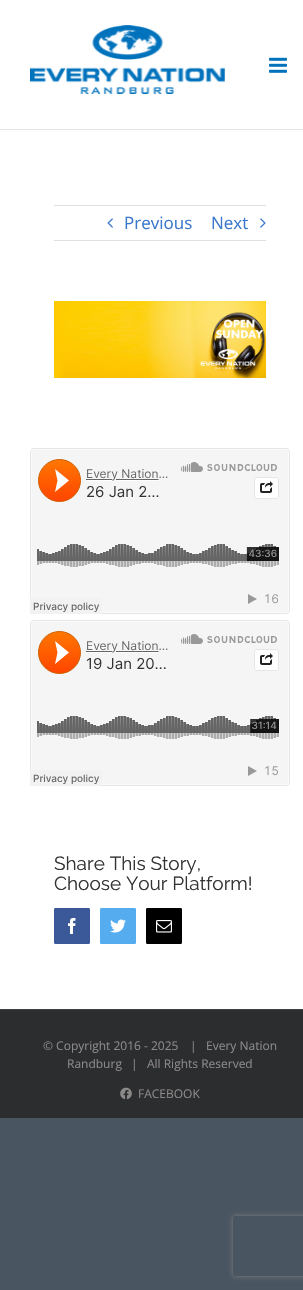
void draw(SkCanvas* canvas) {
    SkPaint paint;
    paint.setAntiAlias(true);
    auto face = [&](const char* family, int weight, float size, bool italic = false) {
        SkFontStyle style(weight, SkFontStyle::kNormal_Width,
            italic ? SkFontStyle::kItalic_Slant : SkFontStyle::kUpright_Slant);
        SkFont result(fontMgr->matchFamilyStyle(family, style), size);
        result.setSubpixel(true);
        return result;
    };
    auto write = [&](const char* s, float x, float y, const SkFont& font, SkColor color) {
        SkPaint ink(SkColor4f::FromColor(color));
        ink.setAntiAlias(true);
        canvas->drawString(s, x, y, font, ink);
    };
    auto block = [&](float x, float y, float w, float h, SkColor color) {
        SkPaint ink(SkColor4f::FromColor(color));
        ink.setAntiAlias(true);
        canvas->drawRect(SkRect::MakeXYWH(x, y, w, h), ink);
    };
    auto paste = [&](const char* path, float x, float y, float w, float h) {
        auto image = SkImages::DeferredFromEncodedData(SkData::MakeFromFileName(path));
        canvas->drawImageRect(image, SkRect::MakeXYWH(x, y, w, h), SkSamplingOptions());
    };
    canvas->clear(SkColorSetRGB(73, 85, 97));
    block(0, 0, 303, 129, SK_ColorWHITE);
    block(0, 129, 303, 1, SkColorSetRGB(229, 229, 229));
    paste("pic1.png", 30, 25, 195, 69);
    paste("pic2.png", 269, 57, 18, 16);
    block(0, 130, 303, 879, SK_ColorWHITE);
    block(54, 205, 212, 1, SkColorSetRGB(224, 222, 222));
    block(54, 240, 212, 1, SkColorSetRGB(224, 222, 222));
    paste("pic3.png", 107, 218, 6, 10);
    auto kFont1 = face("Open Sans", 400, 17);
    write("Previous", 124, 229, kFont1, SkColorSetRGB(57, 120, 204));
    write("Next", 211, 229, kFont1, SkColorSetRGB(57, 120, 204));
    paste("pic4.png", 260, 218, 6, 10);
    paste("pic5.png", 54, 301, 212, 77);
    paste("pic6.png", 30, 448, 260, 166);
    paste("pic7.png", 30, 620, 260, 166);
    auto kFont2 = face("Raleway", 400, 19);
    write("Share This Story,", 54, 870, kFont2, SkColorSetRGB(51, 51, 51));
    write("Choose Your Platform!", 54, 890, kFont2, SkColorSetRGB(51, 51, 51));
    paint.setColor(SkColorSetRGB(59, 89, 152));
    canvas->drawRoundRect(SkRect::MakeXYWH(54.5f, 908.5f, 35, 35), 0.5f, 0.5f, paint);
    paint.setStyle(SkPaint::kStroke_Style);
    paint.setStrokeWidth(1);
    canvas->drawRoundRect(SkRect::MakeXYWH(54.5f, 908.5f, 35, 35), 0.5f, 0.5f, paint);
    paste("pic8.png", 68, 918, 8, 16);
    paint.setStyle(SkPaint::kFill_Style);
    paint.setColor(SkColorSetRGB(85, 172, 238));
    canvas->drawRoundRect(SkRect::MakeXYWH(100.5f, 908.5f, 35, 35), 0.5f, 0.5f, paint);
    paint.setStyle(SkPaint::kStroke_Style);
    canvas->drawRoundRect(SkRect::MakeXYWH(100.5f, 908.5f, 35, 35), 0.5f, 0.5f, paint);
    paste("pic9.png", 110, 919, 16, 14);
    paint.setStyle(SkPaint::kFill_Style);
    paint.setColor(SK_ColorBLACK);
    canvas->drawRoundRect(SkRect::MakeXYWH(146.5f, 908.5f, 35, 35), 0.5f, 0.5f, paint);
    paint.setStyle(SkPaint::kStroke_Style);
    canvas->drawRoundRect(SkRect::MakeXYWH(146.5f, 908.5f, 35, 35), 0.5f, 0.5f, paint);
    paste("pic10.png", 156, 920, 16, 13);
    block(0, 1010, 303, 108, SkColorSetRGB(44, 45, 47));
    block(0, 1009, 303, 1, SkColorSetRGB(64, 64, 66));
    auto kFont3 = face("Open Sans", 400, 12);
    write("© Copyright 2016 - 2025", 43, 1050, kFont3, SkColorSetRGB(140, 137, 137));
    write("|", 190, 1050, kFont3, SkColorSetRGB(140, 137, 137));
    write("Every Nation", 206, 1050, kFont3, SkColorSetRGB(140, 137, 137));
    write("Randburg", 67, 1068, kFont3, SkColorSetRGB(140, 137, 137));
    write("|   All Rights Reserved", 131, 1068, kFont3, SkColorSetRGB(140, 137, 137));
    paste("pic11.png", 120, 1087, 12, 13);
    write("FACEBOOK", 138, 1098, kFont3, SkColorSetRGB(140, 137, 137));
    canvas->save();
    canvas->clipPath(SkPathBuilder(SkPathFillType::kEvenOdd).moveTo(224, 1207).lineTo(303, 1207).lineTo(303, 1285).lineTo(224, 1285).close().moveTo(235, 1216).lineTo(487, 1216).cubicTo(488, 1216, 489, 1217, 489, 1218).lineTo(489, 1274).cubicTo(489, 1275, 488, 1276, 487, 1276).lineTo(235, 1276).cubicTo(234, 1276, 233, 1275, 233, 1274).lineTo(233, 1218).cubicTo(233, 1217, 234, 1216, 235, 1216).close().detach(), true);
    paint.setStyle(SkPaint::kFill_Style);
    paint.setColor(SkColorSetRGB(128, 128, 128));
    paint.setMaskFilter(SkMaskFilter::MakeBlur(kNormal_SkBlurStyle, 2.5f));
    canvas->drawRoundRect(SkRect::MakeXYWH(233, 1216, 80, 60), 2, 2, paint);
    paint.setMaskFilter(nullptr);
    canvas->restore();
}
